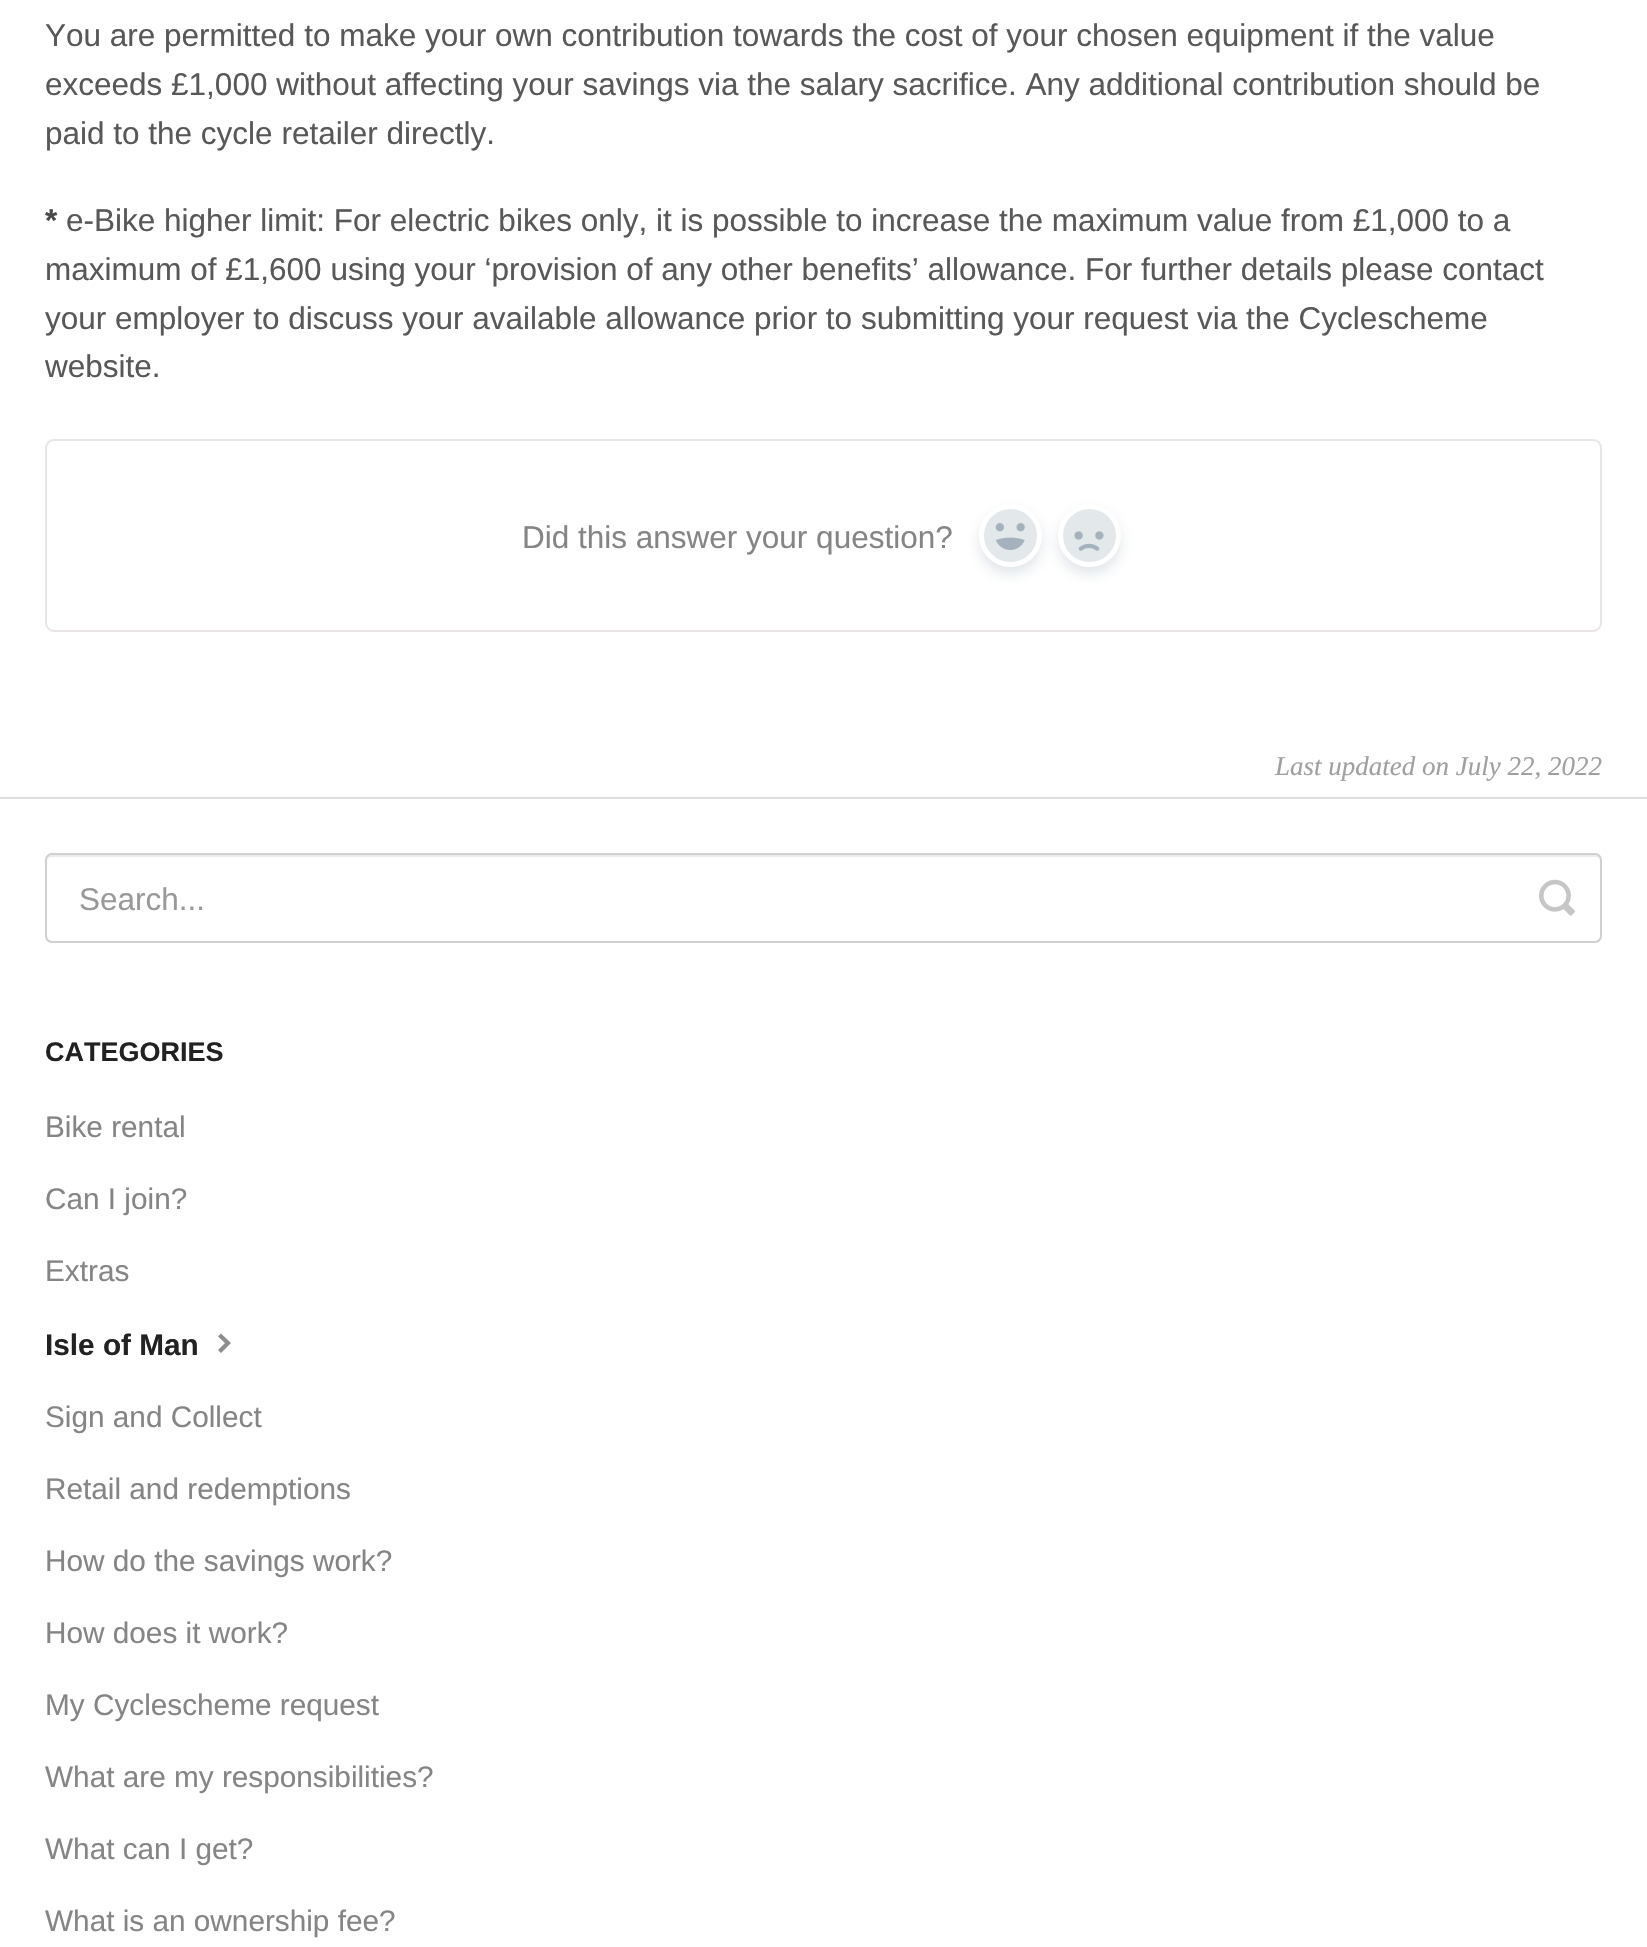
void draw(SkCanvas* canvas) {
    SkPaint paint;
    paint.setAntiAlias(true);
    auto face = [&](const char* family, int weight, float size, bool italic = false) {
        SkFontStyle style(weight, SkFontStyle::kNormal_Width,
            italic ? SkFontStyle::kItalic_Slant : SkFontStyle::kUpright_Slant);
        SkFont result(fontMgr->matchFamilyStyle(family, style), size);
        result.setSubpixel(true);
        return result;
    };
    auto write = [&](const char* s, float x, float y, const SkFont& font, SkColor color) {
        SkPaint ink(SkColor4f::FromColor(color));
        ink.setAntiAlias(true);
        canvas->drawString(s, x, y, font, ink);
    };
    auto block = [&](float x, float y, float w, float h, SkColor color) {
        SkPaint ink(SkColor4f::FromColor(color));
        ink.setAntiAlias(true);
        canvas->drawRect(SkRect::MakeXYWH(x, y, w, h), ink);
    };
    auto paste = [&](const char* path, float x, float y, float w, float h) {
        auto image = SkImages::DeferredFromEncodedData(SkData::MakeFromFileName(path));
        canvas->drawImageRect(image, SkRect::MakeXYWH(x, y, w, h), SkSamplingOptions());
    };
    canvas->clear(SK_ColorWHITE);
    block(0, 797, 1647, 2, SkColorSetRGB(222, 222, 222));
    auto kFont1 = face("Liberation Sans", 400, 31.5f);
    write("You are permitted to make your own contribution towards the cost of your chosen equipment if the value", 45, 46, kFont1, SkColorSetRGB(88, 88, 88));
    write("exceeds £1,000 without affecting your savings via the salary sacrifice. Any additional contribution should be", 45, 95, kFont1, SkColorSetRGB(88, 88, 88));
    write("paid to the cycle retailer directly.", 45, 144, kFont1, SkColorSetRGB(88, 88, 88));
    auto kFont2 = face("Liberation Sans", 700, 31.5f);
    write("*", 45, 231, kFont2, SkColorSetRGB(73, 73, 73));
    write("e-Bike higher limit: For electric bikes only, it is possible to increase the maximum value from £1,000 to a", 66, 231, kFont1, SkColorSetRGB(88, 88, 88));
    write("maximum of £1,600 using your ‘provision of any other benefits’ allowance. For further details please contact", 45, 280, kFont1, SkColorSetRGB(88, 88, 88));
    write("your employer to discuss your available allowance prior to submitting your request via the Cyclescheme", 45, 329, kFont1, SkColorSetRGB(88, 88, 88));
    write("website.", 45, 377, kFont1, SkColorSetRGB(88, 88, 88));
    paint.setStyle(SkPaint::kStroke_Style);
    paint.setStrokeWidth(2);
    paint.setColor(SkColorSetRGB(233, 229, 229));
    canvas->drawRoundRect(SkRect::MakeXYWH(46, 440, 1555, 191), 8, 8, paint);
    write("Did this answer your question?", 522, 548, kFont1, SkColorSetRGB(133, 133, 133));
    paint.setStyle(SkPaint::kFill_Style);
    paint.setColor(SkColorSetARGB(128, 193, 203, 212));
    paint.setMaskFilter(SkMaskFilter::MakeBlur(kNormal_SkBlurStyle, 7));
    canvas->drawRoundRect(SkRect::MakeXYWH(979, 511, 63, 63), 31.5f, 31.5f, paint);
    paint.setMaskFilter(nullptr);
    paint.setColor(SkColorSetRGB(227, 232, 235));
    canvas->drawCircle(1010.5f, 535.5f, 29, paint);
    paint.setStyle(SkPaint::kStroke_Style);
    paint.setStrokeWidth(5);
    paint.setColor(SK_ColorWHITE);
    canvas->drawCircle(1010.5f, 535.5f, 29, paint);
    paste("pic1.png", 995, 523, 30, 27);
    paint.setStyle(SkPaint::kFill_Style);
    paint.setColor(SkColorSetARGB(128, 193, 203, 212));
    paint.setMaskFilter(SkMaskFilter::MakeBlur(kNormal_SkBlurStyle, 7));
    canvas->drawRoundRect(SkRect::MakeXYWH(1058, 511, 63, 63), 31.5f, 31.5f, paint);
    paint.setMaskFilter(nullptr);
    paint.setColor(SkColorSetRGB(227, 232, 235));
    canvas->drawCircle(1089.5f, 535.5f, 29, paint);
    paint.setStyle(SkPaint::kStroke_Style);
    paint.setColor(SK_ColorWHITE);
    canvas->drawCircle(1089.5f, 535.5f, 29, paint);
    paste("pic2.png", 1074, 531, 30, 20);
    auto kFont3 = face("Liberation Serif", 400, 27, true);
    write("Last updated on July 22, 2022", 1275, 775, kFont3, SkColorSetRGB(160, 160, 160));
    paint.setStyle(SkPaint::kFill_Style);
    paint.setColor(SkColorSetRGB(236, 236, 236));
    canvas->drawPath(SkPathBuilder().moveTo(52, 857).lineTo(1595, 857).cubicTo(1598, 857, 1600, 859, 1600, 862).cubicTo(1600, 859, 1599, 855, 1595, 855).lineTo(52, 855).cubicTo(48, 855, 47, 859, 47, 862).cubicTo(47, 859, 49, 857, 52, 857).close().detach(), paint);
    paint.setStyle(SkPaint::kStroke_Style);
    paint.setStrokeWidth(2);
    paint.setColor(SkColorSetRGB(208, 208, 208));
    canvas->drawRoundRect(SkRect::MakeXYWH(46, 854, 1555, 88), 6, 6, paint);
    write("Search...", 79, 910, kFont1, SkColorSetRGB(153, 153, 153));
    paste("pic3.png", 1539, 879, 36, 37);
    auto kFont4 = face("Liberation Sans", 700, 27);
    write("CATEGORIES", 45, 1061, kFont4, SkColorSetRGB(34, 34, 34));
    auto kFont5 = face("Liberation Sans", 400, 29.75f);
    write("Bike rental", 45, 1137, kFont5, SkColorSetRGB(133, 133, 133));
    write("Can I join?", 45, 1209, kFont5, SkColorSetRGB(133, 133, 133));
    write("Extras", 45, 1281, kFont5, SkColorSetRGB(133, 133, 133));
    auto kFont6 = face("Liberation Sans", 700, 29.75f);
    write("Isle of Man", 45, 1355, kFont6, SkColorSetRGB(34, 34, 34));
    paint.setStyle(SkPaint::kFill_Style);
    paint.setColor(SkColorSetRGB(141, 141, 141));
    canvas->drawPath(SkPathBuilder().moveTo(221, 1333.5f).lineTo(218, 1336.5f).lineTo(225, 1343).lineTo(218, 1350).lineTo(221, 1353).lineTo(231, 1343).close().detach(), paint);
    write("Sign and Collect", 45, 1427, kFont5, SkColorSetRGB(133, 133, 133));
    write("Retail and redemptions", 45, 1499, kFont5, SkColorSetRGB(133, 133, 133));
    write("How do the savings work?", 45, 1571, kFont5, SkColorSetRGB(133, 133, 133));
    write("How does it work?", 45, 1643, kFont5, SkColorSetRGB(133, 133, 133));
    write("My Cyclescheme request", 45, 1715, kFont5, SkColorSetRGB(133, 133, 133));
    write("What are my responsibilities?", 45, 1787, kFont5, SkColorSetRGB(133, 133, 133));
    write("What can I get?", 45, 1859, kFont5, SkColorSetRGB(133, 133, 133));
    write("What is an ownership fee?", 45, 1931, kFont5, SkColorSetRGB(133, 133, 133));
}
